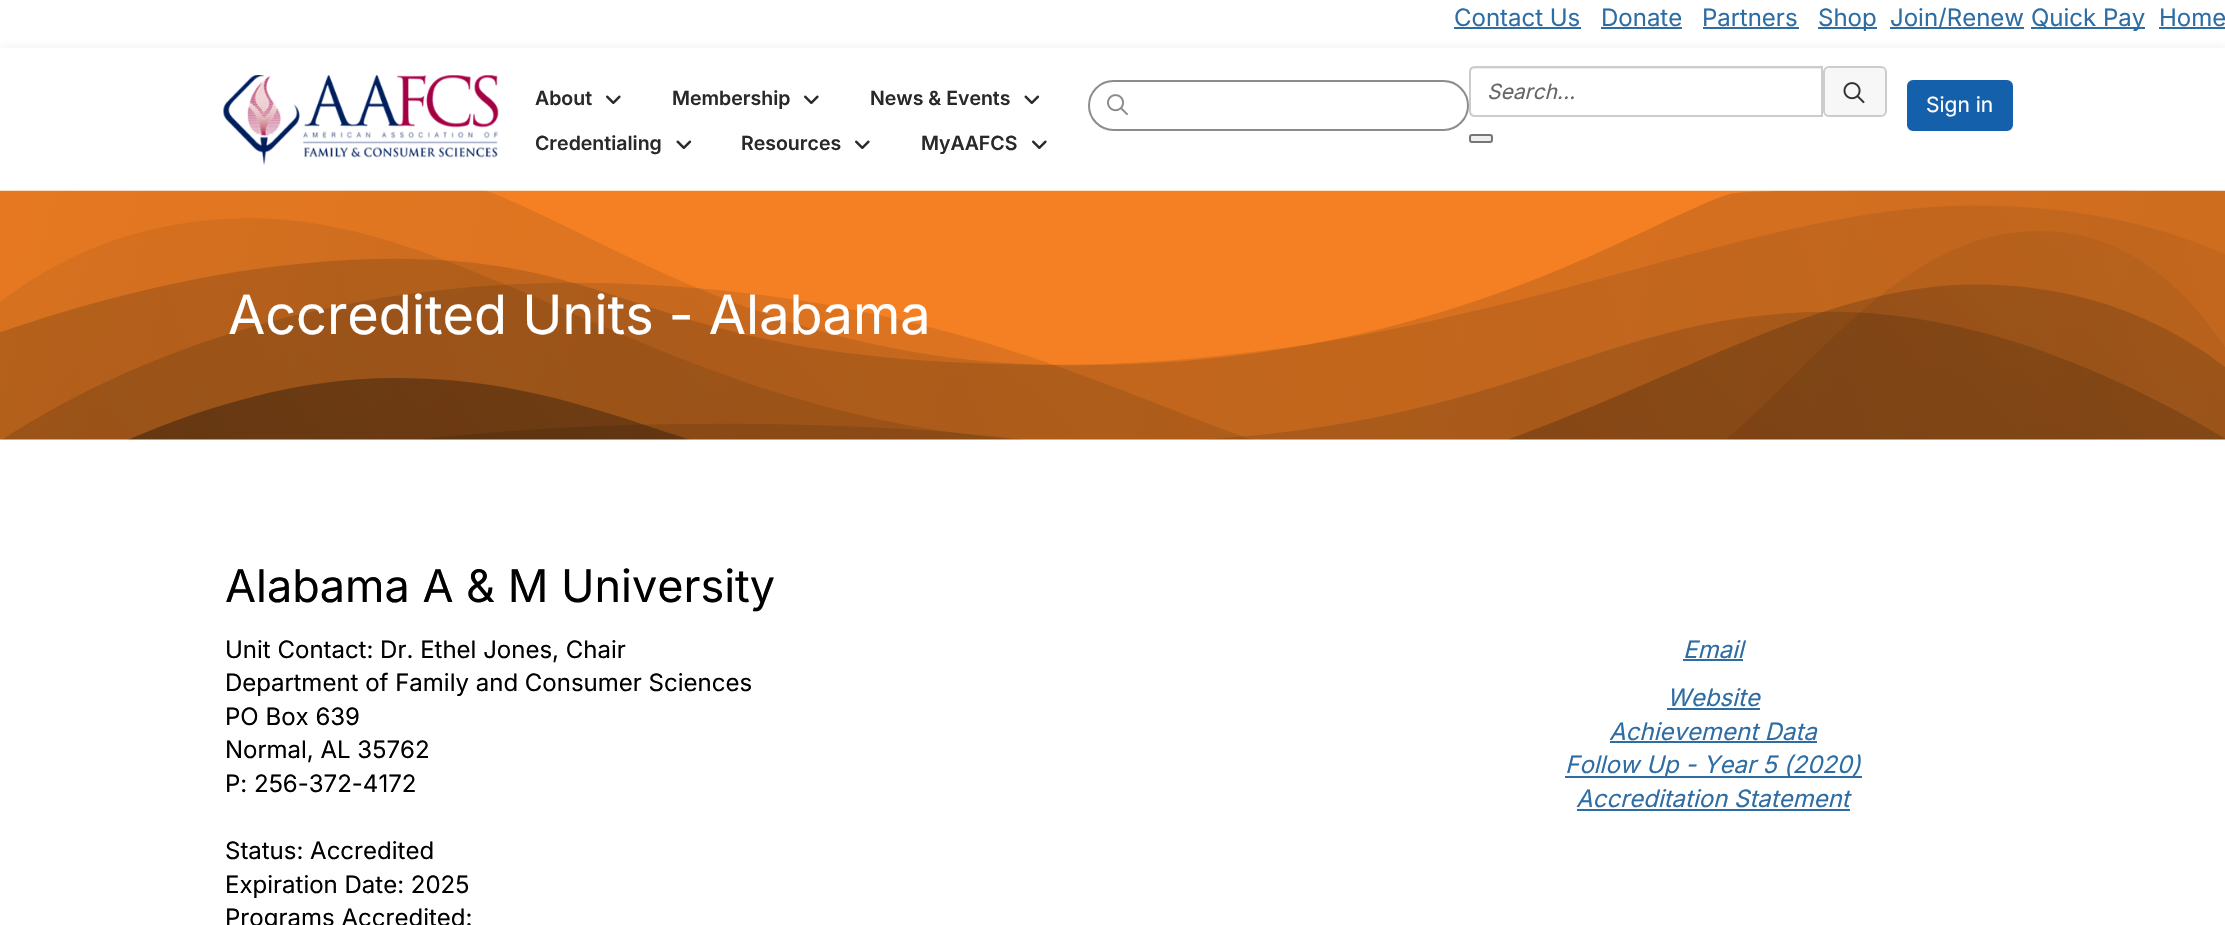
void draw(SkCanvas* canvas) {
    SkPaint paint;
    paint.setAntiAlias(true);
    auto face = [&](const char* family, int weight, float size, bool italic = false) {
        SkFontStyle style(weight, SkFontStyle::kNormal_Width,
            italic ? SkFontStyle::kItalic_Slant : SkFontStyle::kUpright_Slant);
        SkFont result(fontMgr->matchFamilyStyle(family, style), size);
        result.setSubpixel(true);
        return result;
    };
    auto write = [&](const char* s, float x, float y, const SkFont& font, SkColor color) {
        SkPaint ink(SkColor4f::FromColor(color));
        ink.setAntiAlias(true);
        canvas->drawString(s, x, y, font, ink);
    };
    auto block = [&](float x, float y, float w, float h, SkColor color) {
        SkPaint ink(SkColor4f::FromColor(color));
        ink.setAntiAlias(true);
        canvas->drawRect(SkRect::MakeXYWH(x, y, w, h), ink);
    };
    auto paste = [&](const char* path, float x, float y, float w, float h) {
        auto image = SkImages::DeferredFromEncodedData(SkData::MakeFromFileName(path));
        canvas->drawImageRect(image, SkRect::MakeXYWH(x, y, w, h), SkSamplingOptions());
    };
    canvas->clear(SK_ColorWHITE);
    auto kFont1 = face("Inter", 400, 24);
    write("Contact Us", 1454, 26, kFont1, SkColorSetRGB(46, 109, 164));
    block(1454, 27, 127, 2, SkColorSetRGB(46, 109, 164));
    write("Donate", 1601, 26, kFont1, SkColorSetRGB(46, 109, 164));
    block(1601, 27, 81, 2, SkColorSetRGB(46, 109, 164));
    write("Partners", 1702, 26, kFont1, SkColorSetRGB(46, 109, 164));
    block(1703, 27, 96, 2, SkColorSetRGB(46, 109, 164));
    block(1818, 27, 59, 2, SkColorSetRGB(46, 109, 164));
    write("Shop", 1818, 26, kFont1, SkColorSetRGB(46, 109, 164));
    block(1890, 27, 134, 2, SkColorSetRGB(46, 109, 164));
    write("Join/Renew", 1890, 26, kFont1, SkColorSetRGB(46, 109, 164));
    block(2031, 27, 114, 2, SkColorSetRGB(46, 109, 164));
    write("Quick Pay", 2031, 26, kFont1, SkColorSetRGB(46, 109, 164));
    write("Home", 2159, 26, kFont1, SkColorSetRGB(46, 109, 164));
    block(2159, 27, 66, 2, SkColorSetRGB(46, 109, 164));
    paint.setColor(SkColorSetARGB(61, 131, 135, 145));
    paint.setMaskFilter(SkMaskFilter::MakeBlur(kNormal_SkBlurStyle, 6));
    canvas->drawRect(SkRect::MakeXYWH(0, 51, 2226, 143), paint);
    paint.setMaskFilter(nullptr);
    block(0, 48, 2225, 143, SK_ColorWHITE);
    paste("pic1.png", 223, 75, 276, 90);
    auto kFont2 = face("Inter", 600, 19.5f);
    write("About", 535, 105, kFont2, SkColorSetRGB(41, 41, 41));
    paste("pic2.png", 606, 95, 15, 9);
    write("Membership", 672, 105, kFont2, SkColorSetRGB(41, 41, 41));
    paste("pic2.png", 804, 95, 15, 9);
    write("News & Events", 870, 105, kFont2, SkColorSetRGB(41, 41, 41));
    paste("pic3.png", 1024, 95, 16, 9);
    write("Credentialing", 535, 150, kFont2, SkColorSetRGB(41, 41, 41));
    paste("pic3.png", 676, 140, 16, 9);
    write("Resources", 741, 150, kFont2, SkColorSetRGB(41, 41, 41));
    paste("pic2.png", 855, 140, 15, 9);
    write("MyAAFCS", 921, 150, kFont2, SkColorSetRGB(41, 41, 41));
    paste("pic2.png", 1032, 140, 15, 9);
    paint.setColor(SkColorSetRGB(236, 236, 236));
    canvas->drawPath(SkPathBuilder().moveTo(1113, 82).lineTo(1443, 82).cubicTo(1456, 82, 1467, 93, 1467, 106).cubicTo(1467, 92, 1456, 81, 1443, 81).lineTo(1113, 81).cubicTo(1100, 81, 1089, 92, 1089, 106).cubicTo(1089, 93, 1100, 82, 1113, 82).close().detach(), paint);
    paint.setStyle(SkPaint::kStroke_Style);
    paint.setStrokeWidth(2);
    paint.setColor(SkColorSetRGB(140, 140, 140));
    canvas->drawRoundRect(SkRect::MakeXYWH(1089, 81, 379, 49), 24.5f, 24.5f, paint);
    paste("pic4.png", 1107, 94, 21, 21);
    paint.setStyle(SkPaint::kFill_Style);
    paint.setColor(SkColorSetRGB(236, 236, 236));
    canvas->drawPath(SkPathBuilder().moveTo(1474, 69).lineTo(1821, 69).lineTo(1821, 68).lineTo(1475, 68).cubicTo(1472, 68, 1470, 70, 1470, 73).lineTo(1470, 74).cubicTo(1470, 71, 1472, 69, 1474, 69).close().detach(), paint);
    paint.setStyle(SkPaint::kStroke_Style);
    paint.setColor(SkColorSetRGB(204, 204, 204));
    canvas->drawPath(SkPathBuilder().moveTo(1475, 67).lineTo(1822, 67).lineTo(1822, 116).lineTo(1475, 116).cubicTo(1472, 116, 1470, 114, 1470, 111).lineTo(1470, 72).cubicTo(1470, 69, 1472, 67, 1475, 67).close().detach(), paint);
    auto kFont3 = face("Inter", 400, 21, true);
    write("Search...", 1487, 99, kFont3, SkColorSetRGB(102, 102, 102));
    paint.setStyle(SkPaint::kFill_Style);
    paint.setColor(SkColorSetRGB(247, 247, 247));
    canvas->drawRoundRect(SkRect::MakeXYWH(1824, 67, 62, 49), 5, 5, paint);
    paint.setStyle(SkPaint::kStroke_Style);
    paint.setColor(SkColorSetRGB(204, 204, 204));
    canvas->drawRoundRect(SkRect::MakeXYWH(1824, 67, 62, 49), 5, 5, paint);
    paste("pic5.png", 1843, 82, 22, 22);
    paint.setStyle(SkPaint::kFill_Style);
    paint.setColor(SkColorSetRGB(239, 239, 239));
    canvas->drawRoundRect(SkRect::MakeXYWH(1470, 135, 22, 7), 2, 2, paint);
    paint.setStyle(SkPaint::kStroke_Style);
    paint.setColor(SkColorSetRGB(118, 118, 118));
    canvas->drawRoundRect(SkRect::MakeXYWH(1470, 135, 22, 7), 2, 2, paint);
    paint.setStyle(SkPaint::kFill_Style);
    paint.setColor(SkColorSetRGB(20, 96, 170));
    canvas->drawRoundRect(SkRect::MakeXYWH(1908, 81, 104, 49), 5, 5, paint);
    paint.setStyle(SkPaint::kStroke_Style);
    canvas->drawRoundRect(SkRect::MakeXYWH(1908, 81, 104, 49), 5, 5, paint);
    auto kFont4 = face("Inter", 400, 21);
    write("Sign in", 1926, 112, kFont4, SK_ColorWHITE);
    paste("pic6.png", 0, 190, 2225, 250);
    auto kFont5 = face("Inter", 400, 54);
    write("Accredited Units - Alabama", 228, 334, kFont5, SK_ColorWHITE);
    auto kFont6 = face("Inter", 400, 45);
    write("Alabama A & M University", 225, 602, kFont6, SK_ColorBLACK);
    write("Unit Contact: Dr. Ethel Jones, Chair", 225, 658, kFont1, SK_ColorBLACK);
    write("Department of Family and Consumer Sciences", 225, 691, kFont1, SK_ColorBLACK);
    write("PO Box 639", 225, 725, kFont1, SK_ColorBLACK);
    write("Normal, AL 35762", 225, 758, kFont1, SK_ColorBLACK);
    write("P: 256-372-4172", 225, 792, kFont1, SK_ColorBLACK);
    write("Status: Accredited", 225, 859, kFont1, SK_ColorBLACK);
    write("Expiration Date: 2025", 225, 893, kFont1, SK_ColorBLACK);
    write("Programs Accredited:", 225, 926, kFont1, SK_ColorBLACK);
    auto kFont7 = face("Inter", 400, 24, true);
    write("Email", 1683, 658, kFont7, SkColorSetRGB(46, 109, 164));
    block(1683, 659, 60, 2, SkColorSetRGB(46, 109, 164));
    write("Website", 1667, 706, kFont7, SkColorSetRGB(46, 109, 164));
    block(1667, 708, 93, 2, SkColorSetRGB(46, 109, 164));
    write("Achievement Data", 1609, 740, kFont7, SkColorSetRGB(46, 109, 164));
    block(1610, 741, 207, 2, SkColorSetRGB(46, 109, 164));
    block(1565, 776, 297, 2, SkColorSetRGB(46, 109, 164));
    write("Follow Up - Year 5 (2020)", 1565, 773, kFont7, SkColorSetRGB(46, 109, 164));
    write("Accreditation Statement", 1576, 807, kFont7, SkColorSetRGB(46, 109, 164));
    block(1577, 809, 273, 2, SkColorSetRGB(46, 109, 164));
}
